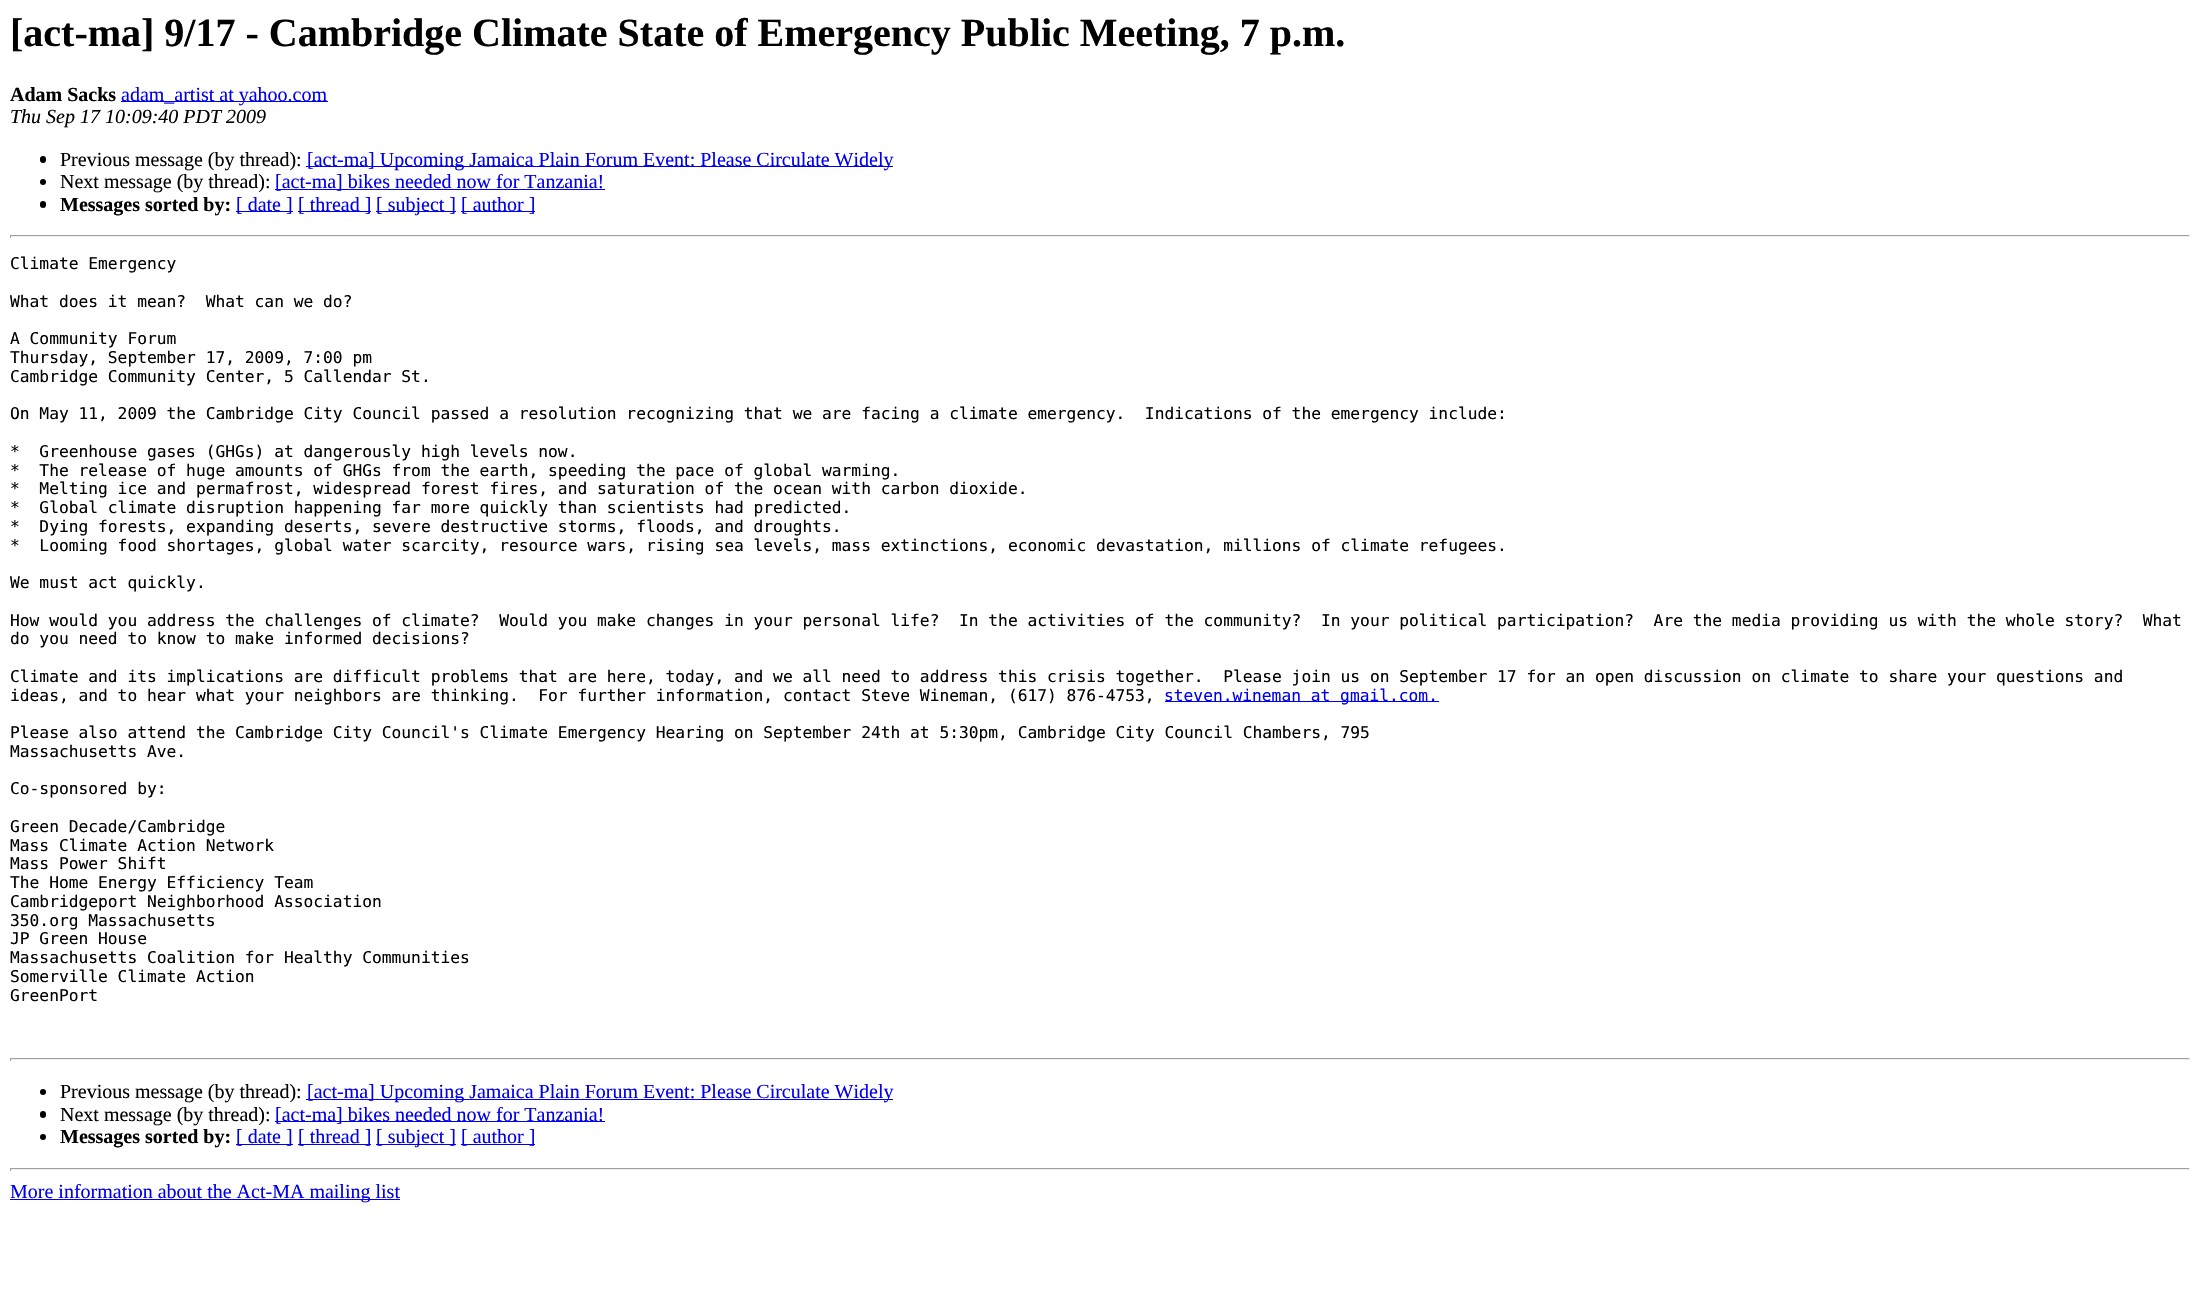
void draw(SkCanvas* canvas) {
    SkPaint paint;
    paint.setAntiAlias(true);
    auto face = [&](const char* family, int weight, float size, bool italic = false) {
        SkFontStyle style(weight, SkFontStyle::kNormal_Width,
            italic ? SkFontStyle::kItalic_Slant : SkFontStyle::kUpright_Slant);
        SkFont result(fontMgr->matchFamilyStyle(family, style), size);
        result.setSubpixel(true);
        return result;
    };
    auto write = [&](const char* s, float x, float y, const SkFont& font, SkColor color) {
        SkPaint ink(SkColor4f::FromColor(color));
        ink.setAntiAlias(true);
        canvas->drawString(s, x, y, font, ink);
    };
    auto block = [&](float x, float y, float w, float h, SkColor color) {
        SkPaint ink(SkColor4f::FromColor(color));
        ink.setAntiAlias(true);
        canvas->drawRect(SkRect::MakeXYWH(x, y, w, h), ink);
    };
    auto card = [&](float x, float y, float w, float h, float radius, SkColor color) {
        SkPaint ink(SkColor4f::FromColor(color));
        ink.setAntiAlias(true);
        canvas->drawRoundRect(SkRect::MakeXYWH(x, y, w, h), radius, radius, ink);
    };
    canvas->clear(SK_ColorWHITE);
    auto kFont1 = face("Liberation Serif", 700, 40);
    write("[act-ma] 9/17 - Cambridge Climate State of Emergency Public Meeting, 7 p.m.", 10, 46, kFont1, SK_ColorBLACK);
    auto kFont2 = face("Liberation Serif", 700, 20);
    write("Adam Sacks", 10, 101, kFont2, SK_ColorBLACK);
    block(121, 101, 207, 1, SkColorSetRGB(0, 0, 238));
    auto kFont3 = face("Liberation Serif", 400, 20);
    write("adam_artist at yahoo.com", 121, 101, kFont3, SkColorSetRGB(0, 0, 238));
    auto kFont4 = face("Liberation Serif", 400, 20, true);
    write("Thu Sep 17 10:09:40 PDT 2009", 10, 123, kFont4, SK_ColorBLACK);
    card(40, 156, 6, 7, 3, SK_ColorBLACK);
    write("Previous message (by thread):", 60, 166, kFont3, SK_ColorBLACK);
    block(306, 166, 587, 1, SkColorSetRGB(0, 0, 238));
    write("[act-ma] Upcoming Jamaica Plain Forum Event: Please Circulate Widely", 307, 166, kFont3, SkColorSetRGB(0, 0, 238));
    paint.setColor(SK_ColorBLACK);
    canvas->drawCircle(43, 182, 3, paint);
    write("Next message (by thread):", 60, 188, kFont3, SK_ColorBLACK);
    block(275, 189, 330, 1, SkColorSetRGB(0, 0, 238));
    write("[act-ma] bikes needed now for Tanzania!", 275, 188, kFont3, SkColorSetRGB(0, 0, 238));
    card(40, 201, 6, 7, 3, SK_ColorBLACK);
    write("Messages sorted by:", 60, 211, kFont2, SK_ColorBLACK);
    block(236, 211, 57, 1, SkColorSetRGB(0, 0, 238));
    write("[ date ]", 236, 211, kFont3, SkColorSetRGB(0, 0, 238));
    block(298, 211, 73, 1, SkColorSetRGB(0, 0, 238));
    write("[ thread ]", 298, 211, kFont3, SkColorSetRGB(0, 0, 238));
    block(376, 211, 80, 1, SkColorSetRGB(0, 0, 238));
    write("[ subject ]", 376, 211, kFont3, SkColorSetRGB(0, 0, 238));
    block(461, 211, 74, 1, SkColorSetRGB(0, 0, 238));
    write("[ author ]", 461, 211, kFont3, SkColorSetRGB(0, 0, 238));
    block(10, 235, 2180, 1, SkColorSetRGB(159, 159, 159));
    block(2189, 235, 1, 3, SkColorSetRGB(238, 238, 238));
    block(10, 236, 2180, 1, SkColorSetRGB(238, 238, 238));
    block(10, 235, 1, 3, SkColorSetRGB(159, 159, 159));
    auto kFont5 = face("DejaVu Sans Mono", 400, 16.25f);
    write("Climate Emergency", 10, 269, kFont5, SK_ColorBLACK);
    write("What does it mean?  What can we do?", 10, 307, kFont5, SK_ColorBLACK);
    write("A Community Forum", 10, 344, kFont5, SK_ColorBLACK);
    write("Thursday, September 17, 2009, 7:00 pm", 10, 363, kFont5, SK_ColorBLACK);
    write("Cambridge Community Center, 5 Callendar St.", 10, 382, kFont5, SK_ColorBLACK);
    write("On May 11, 2009 the Cambridge City Council passed a resolution recognizing that we are facing a climate emergency.  Indications of the emergency include:", 10, 419, kFont5, SK_ColorBLACK);
    write("*  Greenhouse gases (GHGs) at dangerously high levels now.", 10, 457, kFont5, SK_ColorBLACK);
    write("*  The release of huge amounts of GHGs from the earth, speeding the pace of global warming.", 10, 476, kFont5, SK_ColorBLACK);
    write("*  Melting ice and permafrost, widespread forest fires, and saturation of the ocean with carbon dioxide.", 10, 494, kFont5, SK_ColorBLACK);
    write("*  Global climate disruption happening far more quickly than scientists had predicted.", 10, 513, kFont5, SK_ColorBLACK);
    write("*  Dying forests, expanding deserts, severe destructive storms, floods, and droughts.", 10, 532, kFont5, SK_ColorBLACK);
    write("*  Looming food shortages, global water scarcity, resource wars, rising sea levels, mass extinctions, economic devastation, millions of climate refugees.", 10, 551, kFont5, SK_ColorBLACK);
    write("We must act quickly.", 10, 588, kFont5, SK_ColorBLACK);
    write("How would you address the challenges of climate?  Would you make changes in your personal life?  In the activities of the community?  In your political participation?  Are the media providing us with the whole story?  What", 10, 626, kFont5, SK_ColorBLACK);
    write("do you need to know to make informed decisions?", 10, 644, kFont5, SK_ColorBLACK);
    write("Climate and its implications are difficult problems that are here, today, and we all need to address this crisis together.  Please join us on September 17 for an open discussion on climate to share your questions and", 10, 682, kFont5, SK_ColorBLACK);
    write("ideas, and to hear what your neighbors are thinking.  For further information, contact Steve Wineman, (617) 876-4753,", 10, 701, kFont5, SK_ColorBLACK);
    block(1165, 701, 274, 1, SkColorSetRGB(0, 0, 238));
    write("steven.wineman at gmail.com.", 1164, 701, kFont5, SkColorSetRGB(0, 0, 238));
    write("Please also attend the Cambridge City Council's Climate Emergency Hearing on September 24th at 5:30pm, Cambridge City Council Chambers, 795", 10, 738, kFont5, SK_ColorBLACK);
    write("Massachusetts Ave.", 10, 757, kFont5, SK_ColorBLACK);
    write("Co-sponsored by:", 10, 794, kFont5, SK_ColorBLACK);
    write("Green Decade/Cambridge", 10, 832, kFont5, SK_ColorBLACK);
    write("Mass Climate Action Network", 10, 851, kFont5, SK_ColorBLACK);
    write("Mass Power Shift", 10, 869, kFont5, SK_ColorBLACK);
    write("The Home Energy Efficiency Team", 10, 888, kFont5, SK_ColorBLACK);
    write("Cambridgeport Neighborhood Association", 10, 907, kFont5, SK_ColorBLACK);
    write("350.org Massachusetts", 10, 926, kFont5, SK_ColorBLACK);
    write("JP Green House", 10, 944, kFont5, SK_ColorBLACK);
    write("Massachusetts Coalition for Healthy Communities", 10, 963, kFont5, SK_ColorBLACK);
    write("Somerville Climate Action", 10, 982, kFont5, SK_ColorBLACK);
    write("GreenPort", 10, 1001, kFont5, SK_ColorBLACK);
    block(10, 1058, 2180, 1, SkColorSetRGB(159, 159, 159));
    block(2189, 1058, 1, 3, SkColorSetRGB(238, 238, 238));
    block(10, 1059, 2180, 1, SkColorSetRGB(238, 238, 238));
    block(10, 1058, 1, 3, SkColorSetRGB(159, 159, 159));
    canvas->drawCircle(43, 1092, 3, paint);
    write("Previous message (by thread):", 60, 1098, kFont3, SK_ColorBLACK);
    block(306, 1099, 587, 1, SkColorSetRGB(0, 0, 238));
    write("[act-ma] Upcoming Jamaica Plain Forum Event: Please Circulate Widely", 307, 1098, kFont3, SkColorSetRGB(0, 0, 238));
    card(40, 1111, 6, 7, 3, SK_ColorBLACK);
    write("Next message (by thread):", 60, 1121, kFont3, SK_ColorBLACK);
    block(275, 1121, 330, 1, SkColorSetRGB(0, 0, 238));
    write("[act-ma] bikes needed now for Tanzania!", 275, 1121, kFont3, SkColorSetRGB(0, 0, 238));
    canvas->drawCircle(43, 1137, 3, paint);
    write("Messages sorted by:", 60, 1143, kFont2, SK_ColorBLACK);
    block(236, 1144, 57, 1, SkColorSetRGB(0, 0, 238));
    write("[ date ]", 236, 1143, kFont3, SkColorSetRGB(0, 0, 238));
    block(298, 1144, 73, 1, SkColorSetRGB(0, 0, 238));
    write("[ thread ]", 298, 1143, kFont3, SkColorSetRGB(0, 0, 238));
    block(376, 1144, 80, 1, SkColorSetRGB(0, 0, 238));
    write("[ subject ]", 376, 1143, kFont3, SkColorSetRGB(0, 0, 238));
    block(461, 1144, 74, 1, SkColorSetRGB(0, 0, 238));
    write("[ author ]", 461, 1143, kFont3, SkColorSetRGB(0, 0, 238));
    block(10, 1168, 2180, 1, SkColorSetRGB(159, 159, 159));
    block(2189, 1168, 1, 3, SkColorSetRGB(238, 238, 238));
    block(10, 1169, 2180, 1, SkColorSetRGB(238, 238, 238));
    block(10, 1168, 1, 3, SkColorSetRGB(159, 159, 159));
    block(10, 1199, 390, 1, SkColorSetRGB(0, 0, 238));
    write("More information about the Act-MA mailing list", 10, 1198, kFont3, SkColorSetRGB(0, 0, 238));
}
